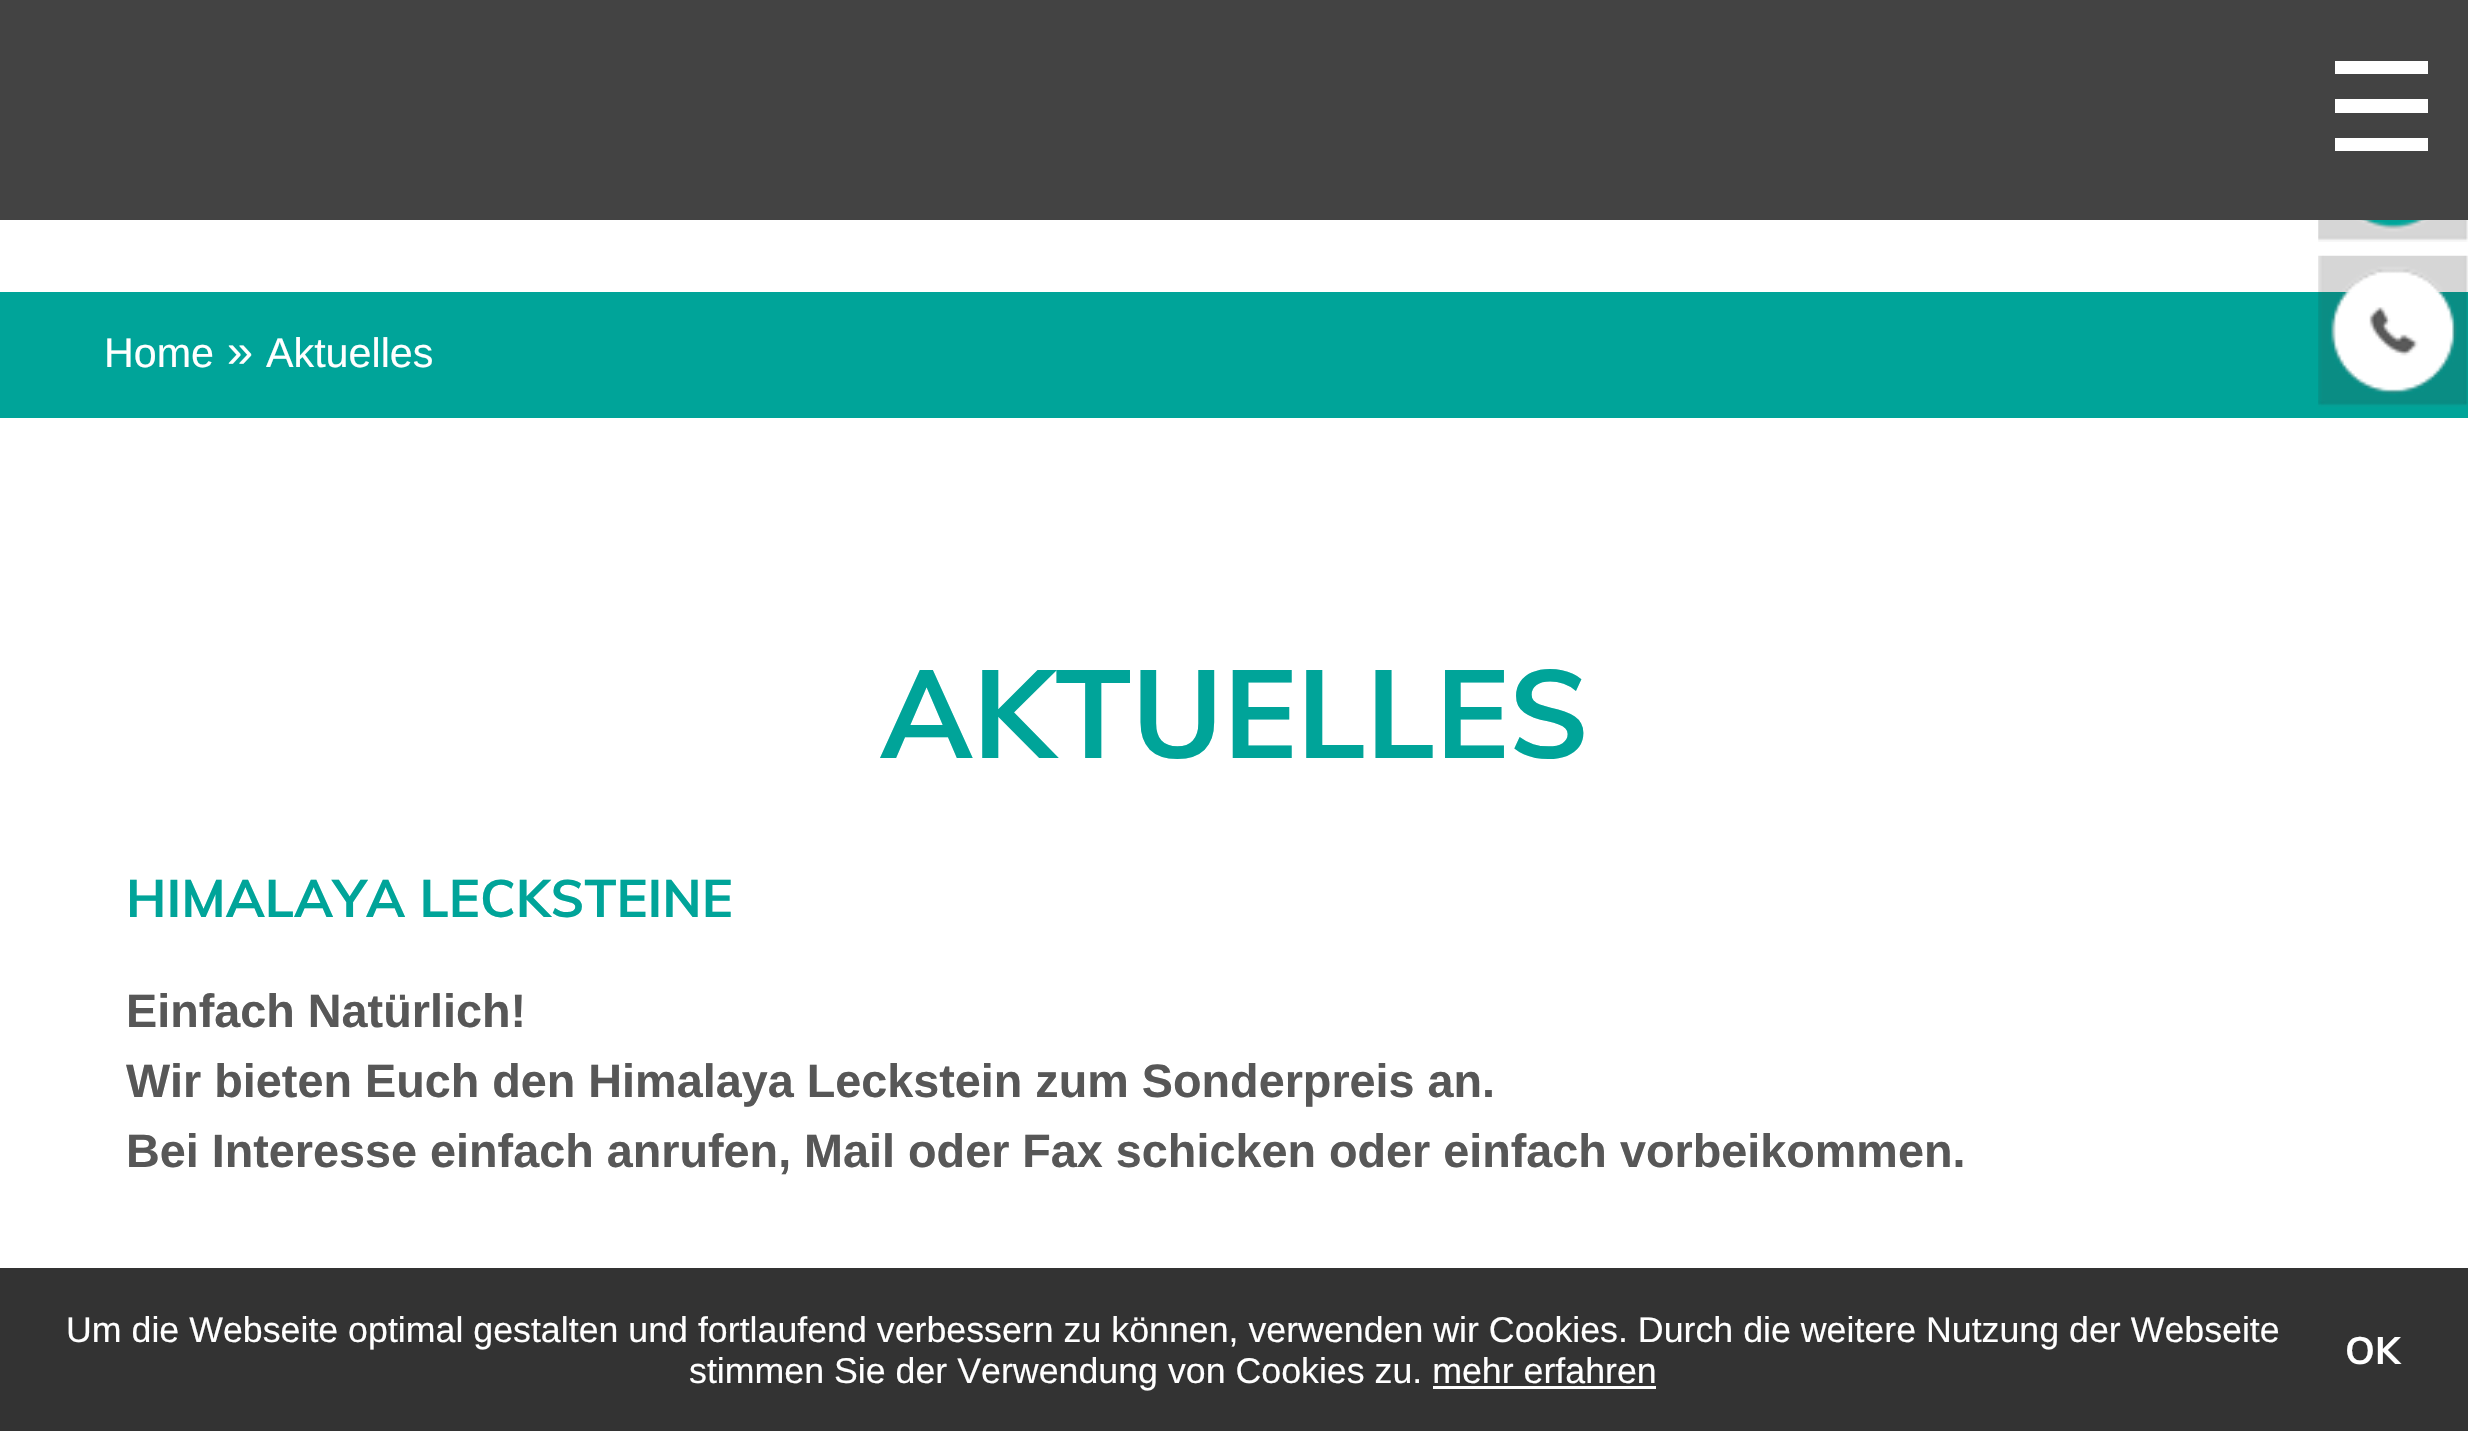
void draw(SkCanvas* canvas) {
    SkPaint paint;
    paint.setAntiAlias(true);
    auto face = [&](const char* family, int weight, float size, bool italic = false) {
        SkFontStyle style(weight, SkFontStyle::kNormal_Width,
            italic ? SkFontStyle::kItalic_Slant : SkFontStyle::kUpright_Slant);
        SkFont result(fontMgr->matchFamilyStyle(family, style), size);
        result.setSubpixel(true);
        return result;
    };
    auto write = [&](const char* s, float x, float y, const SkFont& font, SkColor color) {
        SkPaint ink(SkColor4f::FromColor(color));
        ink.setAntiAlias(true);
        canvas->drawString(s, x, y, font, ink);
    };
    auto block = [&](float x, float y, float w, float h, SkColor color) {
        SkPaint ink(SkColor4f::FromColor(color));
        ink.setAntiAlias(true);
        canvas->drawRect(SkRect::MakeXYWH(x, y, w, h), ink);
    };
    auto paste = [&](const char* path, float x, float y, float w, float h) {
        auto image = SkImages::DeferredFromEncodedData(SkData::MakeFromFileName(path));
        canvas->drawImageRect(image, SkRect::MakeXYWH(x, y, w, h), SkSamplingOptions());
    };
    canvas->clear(SK_ColorWHITE);
    block(0, 0, 2468, 220, SkColorSetRGB(67, 67, 67));
    block(2335, 99, 93, 14, SK_ColorWHITE);
    block(2335, 61, 93, 13, SK_ColorWHITE);
    block(2335, 138, 93, 13, SK_ColorWHITE);
    block(0, 292, 2468, 126, SkColorSetRGB(0, 164, 153));
    auto kFont1 = face("Liberation Sans", 400, 41.25f);
    write("Home", 104, 367, kFont1, SK_ColorWHITE);
    auto kFont2 = face("Liberation Sans", 400, 46.75f);
    write("»", 227, 367, kFont2, SK_ColorWHITE);
    write("Aktuelles", 266, 367, kFont1, SK_ColorWHITE);
    paste("pic1.png", 2318, 220, 150, 22);
    paste("pic2.png", 2318, 255, 150, 152);
    auto kFont3 = face("Muli", 700, 123.75f);
    write("AKTUELLES", 880, 758, kFont3, SkColorSetRGB(0, 164, 153));
    auto kFont4 = face("Muli", 700, 52.25f);
    write("HIMALAYA LECKSTEINE", 126, 917, kFont4, SkColorSetRGB(0, 164, 153));
    auto kFont5 = face("Liberation Sans", 700, 46.75f);
    write("Einfach Natürlich!", 126, 1027, kFont5, SkColorSetRGB(87, 87, 87));
    write("Wir bieten Euch den Himalaya Leckstein zum Sonderpreis an.", 126, 1097, kFont5, SkColorSetRGB(87, 87, 87));
    write("Bei Interesse einfach anrufen, Mail oder Fax schicken oder einfach vorbeikommen.", 126, 1167, kFont5, SkColorSetRGB(87, 87, 87));
    block(0, 1268, 2468, 163, SkColorSetRGB(51, 51, 51));
    auto kFont6 = face("Liberation Sans", 400, 35.75f);
    write("Um die Webseite optimal gestalten und fortlaufend verbessern zu können, verwenden wir Cookies. Durch die weitere Nutzung der Webseite", 66, 1342, kFont6, SK_ColorWHITE);
    auto kFont7 = face("Muli", 700, 38);
    write("OK", 2345, 1364, kFont7, SK_ColorWHITE);
    write("stimmen Sie der Verwendung von Cookies zu. mehr erfahren", 689, 1383, kFont6, SK_ColorWHITE);
    block(1433, 1386, 223, 3, SK_ColorWHITE);
}
